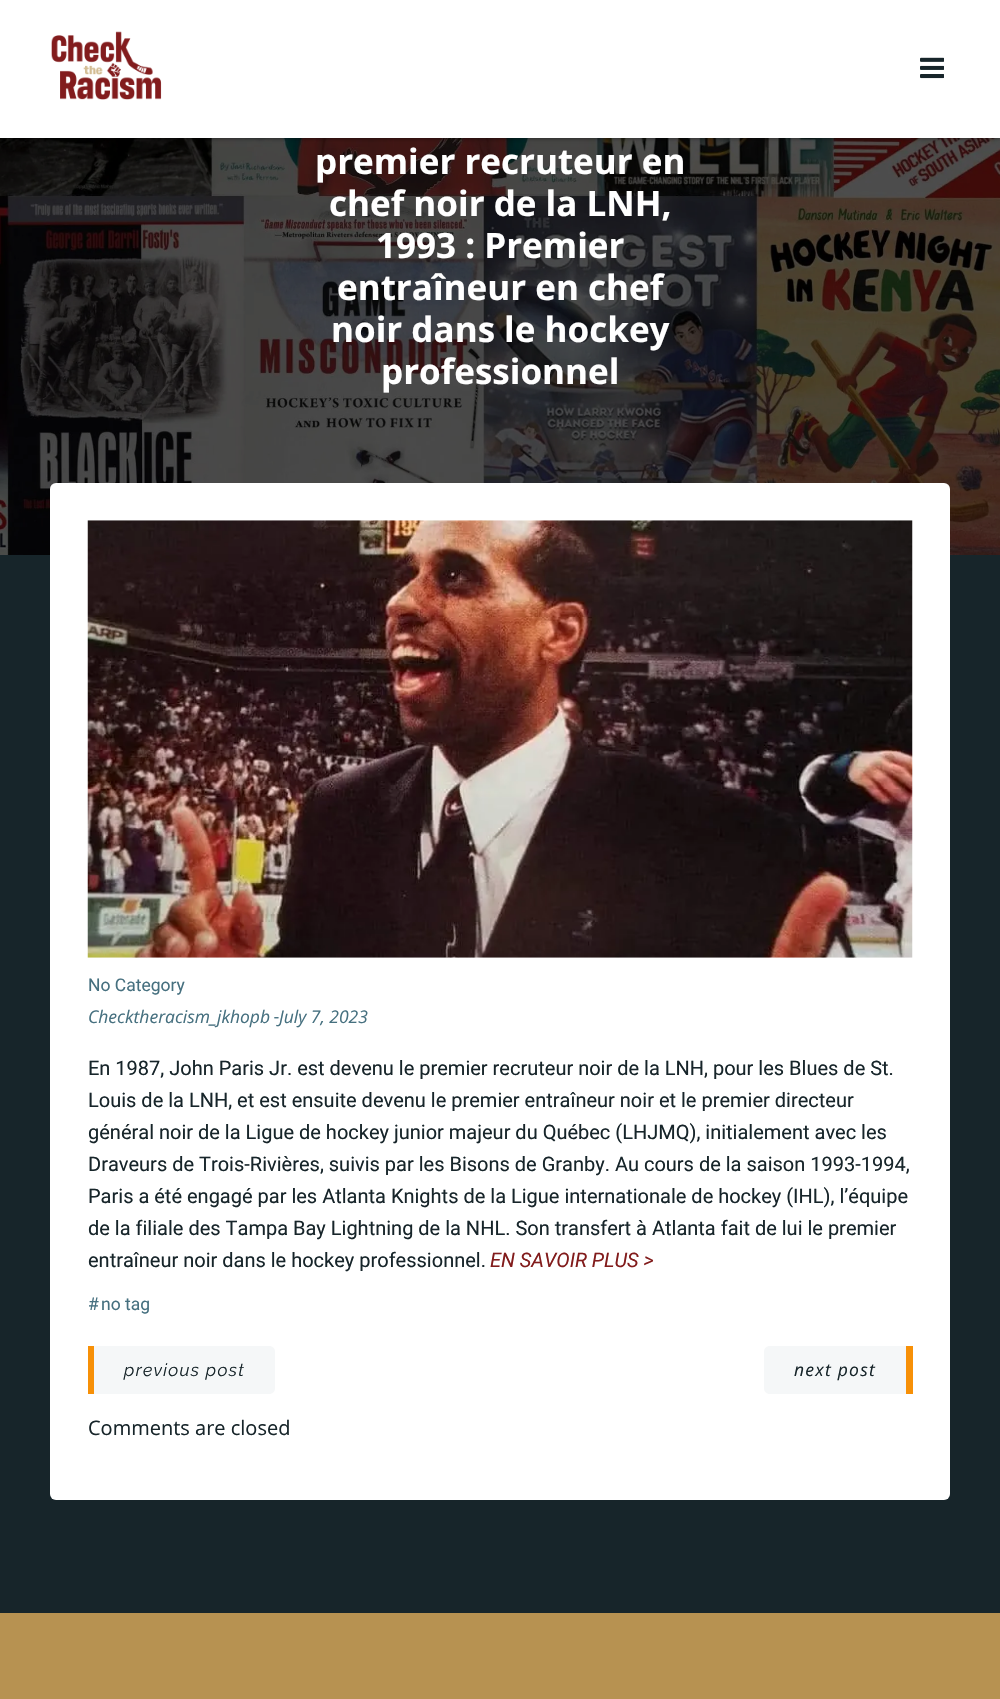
void draw(SkCanvas* canvas) {
    SkPaint paint;
    paint.setAntiAlias(true);
    auto face = [&](const char* family, int weight, float size, bool italic = false) {
        SkFontStyle style(weight, SkFontStyle::kNormal_Width,
            italic ? SkFontStyle::kItalic_Slant : SkFontStyle::kUpright_Slant);
        SkFont result(fontMgr->matchFamilyStyle(family, style), size);
        result.setSubpixel(true);
        return result;
    };
    auto write = [&](const char* s, float x, float y, const SkFont& font, SkColor color) {
        SkPaint ink(SkColor4f::FromColor(color));
        ink.setAntiAlias(true);
        canvas->drawString(s, x, y, font, ink);
    };
    auto writeSpaced = [&](const char* s, float x, float y, const SkFont& font, const SkPaint& ink, float letter, float word) {
        std::vector<SkGlyphID> glyphs(font.countText(s, strlen(s), SkTextEncoding::kUTF8));
        std::vector<float> xs(glyphs.size());
        font.textToGlyphs(s, strlen(s), SkTextEncoding::kUTF8, glyphs);
        font.getXPos(glyphs, xs, x);
        float extra = 0;
        for (size_t i = 0; i < glyphs.size(); i++) {
            xs[i] += extra;
            extra += letter + word * (glyphs[i] == font.unicharToGlyph(' '));
        }
        canvas->drawTextBlob(SkTextBlob::MakeFromPosHGlyphs(glyphs, xs, y, font), 0, 0, ink);
    };
    auto block = [&](float x, float y, float w, float h, SkColor color) {
        SkPaint ink(SkColor4f::FromColor(color));
        ink.setAntiAlias(true);
        canvas->drawRect(SkRect::MakeXYWH(x, y, w, h), ink);
    };
    auto card = [&](float x, float y, float w, float h, float radius, SkColor color) {
        SkPaint ink(SkColor4f::FromColor(color));
        ink.setAntiAlias(true);
        canvas->drawRoundRect(SkRect::MakeXYWH(x, y, w, h), radius, radius, ink);
    };
    auto paste = [&](const char* path, float x, float y, float w, float h) {
        auto image = SkImages::DeferredFromEncodedData(SkData::MakeFromFileName(path));
        canvas->drawImageRect(image, SkRect::MakeXYWH(x, y, w, h), SkSamplingOptions());
    };
    canvas->clear(SK_ColorWHITE);
    paste("pic3.png", 0, 138, 1000, 417);
    paint.setColor(SkColorSetARGB(128, 0, 0, 0));
    paint.setMaskFilter(SkMaskFilter::MakeBlur(kNormal_SkBlurStyle, 2.5f));
    canvas->drawRect(SkRect::MakeXYWH(0, 0, 1000, 138), paint);
    paint.setMaskFilter(nullptr);
    block(0, 0, 1000, 138, SK_ColorWHITE);
    paste("pic1.png", 51, 31, 111, 69);
    paste("pic2.png", 920, 57, 24, 22);
    auto kFont1 = face("Open Sans", 700, 35);
    write("premier recruteur en", 315, 174, kFont1, SK_ColorWHITE);
    write("chef noir de la LNH,", 329, 216, kFont1, SK_ColorWHITE);
    write("1993 : Premier", 376, 258, kFont1, SK_ColorWHITE);
    write("entraîneur en chef", 337, 300, kFont1, SK_ColorWHITE);
    write("noir dans le hockey", 331, 342, kFont1, SK_ColorWHITE);
    write("professionnel", 381, 384, kFont1, SK_ColorWHITE);
    block(0, 555, 1000, 1058, SkColorSetRGB(23, 37, 42));
    card(50, 483, 900, 1017, 6, SK_ColorWHITE);
    paste("pic4.png", 87, 520, 826, 438);
    auto kFont2 = face("Roboto", 400, 17.5f);
    write("No Category", 88, 991, kFont2, SkColorSetRGB(70, 112, 127));
    auto kFont3 = face("Open Sans", 400, 17.5f, true);
    write("Checktheracism_jkhopb", 88, 1023, kFont3, SkColorSetRGB(70, 112, 127));
    write("-", 274, 1023, kFont2, SkColorSetRGB(70, 112, 127));
    write("July 7, 2023", 279, 1023, kFont3, SkColorSetRGB(70, 112, 127));
    auto kFont4 = face("Roboto", 400, 20);
    write("En 1987, John Paris Jr. est devenu le premier recruteur noir de la LNH, pour les Blues de St.", 88, 1075, kFont4, SkColorSetRGB(23, 37, 42));
    write("Louis de la LNH, et est ensuite devenu le premier entraîneur noir et le premier directeur", 88, 1107, kFont4, SkColorSetRGB(23, 37, 42));
    write("général noir de la Ligue de hockey junior majeur du Québec (LHJMQ), initialement avec les", 88, 1139, kFont4, SkColorSetRGB(23, 37, 42));
    write("Draveurs de Trois-Rivières, suivis par les Bisons de Granby. Au cours de la saison 1993-1994,", 88, 1171, kFont4, SkColorSetRGB(23, 37, 42));
    write("Paris a été engagé par les Atlanta Knights de la Ligue internationale de hockey (IHL), l’équipe", 88, 1203, kFont4, SkColorSetRGB(23, 37, 42));
    write("de la filiale des Tampa Bay Lightning de la NHL. Son transfert à Atlanta fait de lui le premier", 88, 1235, kFont4, SkColorSetRGB(23, 37, 42));
    write("entraîneur noir dans le hockey professionnel.", 88, 1267, kFont4, SkColorSetRGB(23, 37, 42));
    auto kFont5 = face("Roboto", 400, 20, true);
    write("EN SAVOIR PLUS >", 490, 1267, kFont5, SkColorSetRGB(130, 28, 28));
    write("#", 88, 1310, kFont2, SkColorSetRGB(70, 112, 127));
    write("no tag", 101, 1310, kFont2, SkColorSetRGB(70, 112, 127));
    paint.setColor(SkColorSetRGB(245, 247, 248));
    canvas->drawPath(SkPathBuilder().moveTo(94, 1346).lineTo(269, 1346).cubicTo(272.5f, 1346, 275, 1348.5f, 275, 1352).lineTo(275, 1388).cubicTo(275, 1391.5f, 272.5f, 1394, 269, 1394).lineTo(94, 1394).close().detach(), paint);
    block(88, 1346, 6, 48, SkColorSetRGB(247, 144, 7));
    auto kFont6 = face("Raleway", 400, 17.5f, true);
    paint.setColor(SkColorSetRGB(23, 37, 42));
    writeSpaced("previous post", 124, 1376, kFont6, paint, 1.25f, 0);
    paint.setColor(SkColorSetRGB(245, 247, 248));
    canvas->drawPath(SkPathBuilder().moveTo(770, 1346).lineTo(906, 1346).lineTo(906, 1394).lineTo(770, 1394).cubicTo(766.5f, 1394, 764, 1391.5f, 764, 1388).lineTo(764, 1352).cubicTo(764, 1348.5f, 766.5f, 1346, 770, 1346).close().detach(), paint);
    block(906, 1346, 7, 48, SkColorSetRGB(247, 144, 7));
    paint.setColor(SkColorSetRGB(23, 37, 42));
    writeSpaced("next post", 794, 1376, kFont3, paint, 1.25f, 0);
    auto kFont7 = face("Open Sans", 400, 20);
    write("Comments are closed", 88, 1435, kFont7, SkColorSetRGB(23, 37, 42));
    block(0, 1613, 1000, 86, SkColorSetRGB(183, 146, 81));
}
